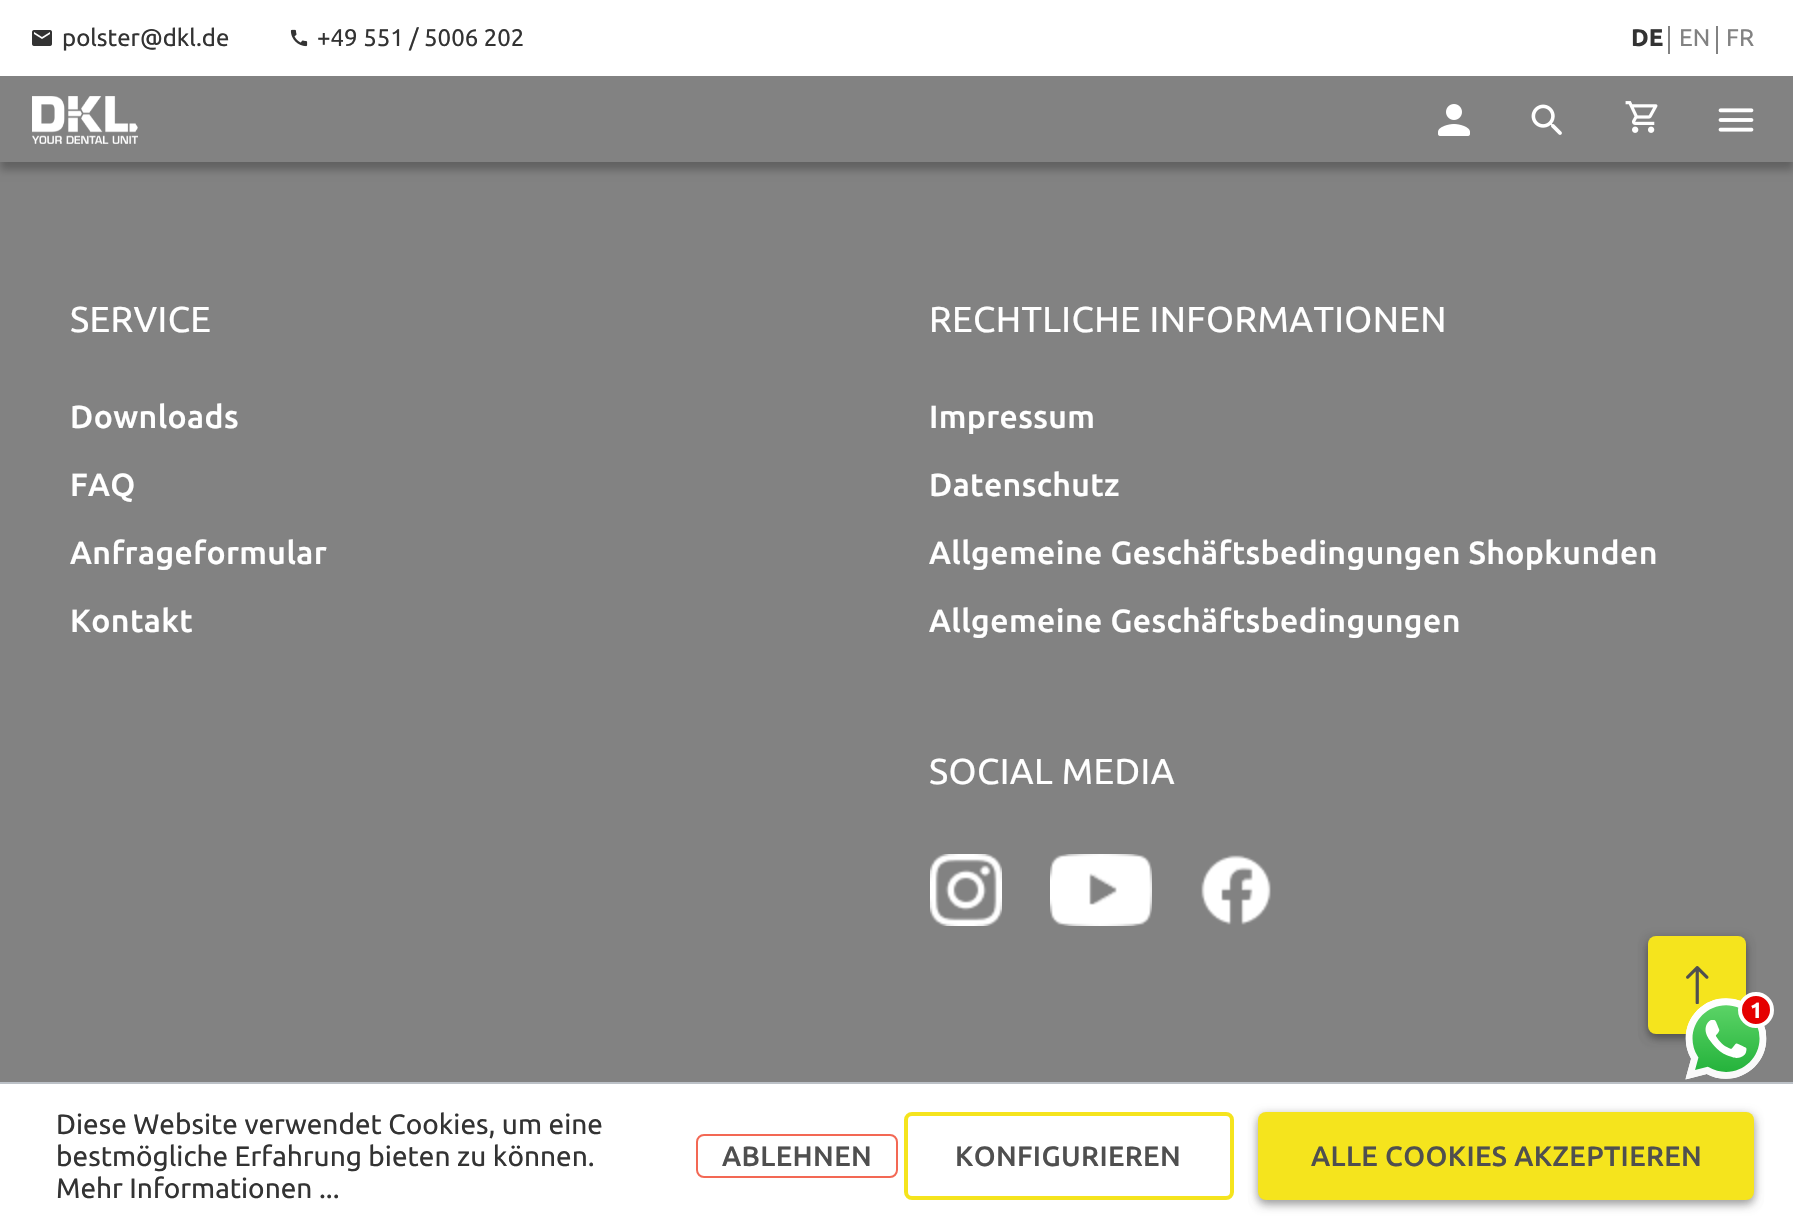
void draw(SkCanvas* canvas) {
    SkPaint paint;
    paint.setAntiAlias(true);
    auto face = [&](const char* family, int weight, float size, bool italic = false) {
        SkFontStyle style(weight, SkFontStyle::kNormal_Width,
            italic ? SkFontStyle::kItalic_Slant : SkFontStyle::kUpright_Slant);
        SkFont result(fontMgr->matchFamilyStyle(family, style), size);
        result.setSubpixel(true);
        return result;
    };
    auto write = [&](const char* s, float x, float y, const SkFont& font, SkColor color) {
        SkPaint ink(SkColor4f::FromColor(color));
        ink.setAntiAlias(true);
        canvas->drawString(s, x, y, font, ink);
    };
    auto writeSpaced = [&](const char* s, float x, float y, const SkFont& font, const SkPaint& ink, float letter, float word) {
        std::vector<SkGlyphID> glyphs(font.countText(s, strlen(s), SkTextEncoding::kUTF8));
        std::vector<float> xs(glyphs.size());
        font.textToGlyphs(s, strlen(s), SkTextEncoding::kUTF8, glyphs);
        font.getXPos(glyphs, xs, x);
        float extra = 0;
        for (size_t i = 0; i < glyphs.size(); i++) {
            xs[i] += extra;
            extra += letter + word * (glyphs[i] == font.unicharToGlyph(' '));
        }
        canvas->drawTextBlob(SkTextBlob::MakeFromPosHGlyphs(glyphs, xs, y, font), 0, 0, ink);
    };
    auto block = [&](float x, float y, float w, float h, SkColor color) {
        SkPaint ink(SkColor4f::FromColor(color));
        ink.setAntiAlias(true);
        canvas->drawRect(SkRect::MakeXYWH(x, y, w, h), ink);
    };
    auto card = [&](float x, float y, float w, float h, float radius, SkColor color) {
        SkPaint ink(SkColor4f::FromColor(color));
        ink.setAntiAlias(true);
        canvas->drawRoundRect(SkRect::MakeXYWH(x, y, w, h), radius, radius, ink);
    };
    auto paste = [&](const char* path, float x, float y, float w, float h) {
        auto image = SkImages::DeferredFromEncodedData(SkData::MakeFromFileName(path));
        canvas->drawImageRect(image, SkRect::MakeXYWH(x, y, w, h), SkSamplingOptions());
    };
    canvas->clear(SkColorSetRGB(130, 130, 130));
    paint.setColor(SkColorSetARGB(64, 0, 0, 0));
    paint.setMaskFilter(SkMaskFilter::MakeBlur(kNormal_SkBlurStyle, 4));
    canvas->drawRect(SkRect::MakeXYWH(0, 8, 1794, 162), paint);
    paint.setMaskFilter(nullptr);
    block(0, 0, 1793, 76, SK_ColorWHITE);
    paste("pic1.png", 32, 30, 20, 16);
    auto kFont1 = face("Ubuntu", 400, 24);
    write("polster@dkl.de", 62, 46, kFont1, SkColorSetRGB(51, 51, 51));
    paste("pic2.png", 290, 29, 18, 18);
    write("+49 551 / 5006 202", 317, 46, kFont1, SkColorSetRGB(51, 51, 51));
    auto kFont2 = face("Ubuntu", 700, 24);
    write("DE", 1631, 46, kFont2, SkColorSetRGB(51, 51, 51));
    block(1668, 26, 2, 28, SkColorSetRGB(130, 130, 130));
    write("EN", 1679, 46, kFont1, SkColorSetRGB(130, 130, 130));
    block(1716, 26, 2, 28, SkColorSetRGB(130, 130, 130));
    write("FR", 1726, 46, kFont1, SkColorSetRGB(130, 130, 130));
    block(0, 76, 1793, 86, SkColorSetRGB(130, 130, 130));
    paste("pic3.png", 32, 96, 106, 48);
    paste("pic4.png", 1438, 104, 32, 32);
    paste("pic5.png", 1531, 104, 31, 31);
    paste("pic6.png", 1625, 101, 33, 32);
    paste("pic7.png", 1718, 108, 36, 24);
    auto kFont3 = face("Ubuntu", 400, 36);
    paint.setColor(SK_ColorWHITE);
    writeSpaced("SERVICE", 70, 332, kFont3, paint, 0.4f, 0);
    auto kFont4 = face("Ubuntu", 500, 32);
    writeSpaced("Downloads", 70, 428, kFont4, paint, 0.4f, 0);
    writeSpaced("FAQ", 70, 496, kFont4, paint, 0.4f, 0);
    writeSpaced("Anfrageformular", 70, 564, kFont4, paint, 0.4f, 0);
    writeSpaced("Kontakt", 70, 632, kFont4, paint, 0.4f, 0);
    writeSpaced("RECHTLICHE INFORMATIONEN", 929, 332, kFont3, paint, 0.4f, 0);
    writeSpaced("Impressum", 929, 428, kFont4, paint, 0.4f, 0);
    writeSpaced("Datenschutz", 929, 496, kFont4, paint, 0.4f, 0);
    writeSpaced("Allgemeine Geschäftsbedingungen Shopkunden", 929, 564, kFont4, paint, 0.4f, 0);
    writeSpaced("Allgemeine Geschäftsbedingungen", 929, 632, kFont4, paint, 0.4f, 0);
    writeSpaced("SOCIAL MEDIA", 929, 784, kFont3, paint, 0.4f, 0);
    paste("pic8.png", 930, 854, 72, 72);
    paste("pic9.png", 1050, 854, 102, 72);
    paste("pic10.png", 1201, 855, 70, 70);
    paint.setColor(SkColorSetARGB(36, 0, 0, 0));
    paint.setMaskFilter(SkMaskFilter::MakeBlur(kNormal_SkBlurStyle, 4));
    canvas->drawRoundRect(SkRect::MakeXYWH(1648, 940, 98, 98), 8, 8, paint);
    paint.setMaskFilter(nullptr);
    paint.setColor(SkColorSetARGB(31, 0, 0, 0));
    paint.setMaskFilter(SkMaskFilter::MakeBlur(kNormal_SkBlurStyle, 4));
    canvas->drawRoundRect(SkRect::MakeXYWH(1648, 942, 98, 98), 8, 8, paint);
    paint.setMaskFilter(nullptr);
    paint.setColor(SkColorSetARGB(51, 0, 0, 0));
    paint.setMaskFilter(SkMaskFilter::MakeBlur(kNormal_SkBlurStyle, 5));
    canvas->drawRoundRect(SkRect::MakeXYWH(1648, 938, 98, 98), 8, 8, paint);
    paint.setMaskFilter(nullptr);
    card(1648, 936, 98, 98, 8, SkColorSetRGB(245, 228, 29));
    paste("pic11.png", 1686, 966, 23, 38);
    paste("pic12.png", 1685, 998, 82, 82);
    paint.setColor(SkColorSetRGB(229, 0, 0));
    canvas->drawCircle(1756, 1010, 16, paint);
    paint.setStyle(SkPaint::kStroke_Style);
    paint.setStrokeWidth(4);
    paint.setColor(SK_ColorWHITE);
    canvas->drawCircle(1756, 1010, 16, paint);
    auto kFont5 = face("Ubuntu", 700, 22);
    write("1", 1750, 1018, kFont5, SK_ColorWHITE);
    block(0, 1084, 1793, 144, SK_ColorWHITE);
    block(0, 1082, 1793, 2, SkColorSetRGB(188, 193, 199));
    auto kFont6 = face("Ubuntu", 400, 28);
    write("Diese Website verwendet Cookies, um eine", 56, 1134, kFont6, SkColorSetRGB(51, 51, 51));
    write("bestmögliche Erfahrung bieten zu können.", 56, 1166, kFont6, SkColorSetRGB(51, 51, 51));
    write("Mehr Informationen ...", 56, 1198, kFont6, SkColorSetRGB(51, 51, 51));
    paint.setStrokeWidth(2);
    paint.setColor(SkColorSetRGB(243, 104, 84));
    canvas->drawRoundRect(SkRect::MakeXYWH(697, 1135, 200, 42), 7, 7, paint);
    auto kFont7 = face("Ubuntu", 500, 28);
    paint.setStyle(SkPaint::kFill_Style);
    paint.setColor(SkColorSetRGB(79, 79, 79));
    writeSpaced("ABLEHNEN", 722, 1166, kFont7, paint, 0.4f, 0);
    paint.setStyle(SkPaint::kStroke_Style);
    paint.setStrokeWidth(4);
    paint.setColor(SkColorSetRGB(245, 228, 29));
    canvas->drawRoundRect(SkRect::MakeXYWH(906, 1114, 326, 84), 6, 6, paint);
    paint.setStyle(SkPaint::kFill_Style);
    paint.setColor(SkColorSetRGB(79, 79, 79));
    writeSpaced("KONFIGURIEREN", 955, 1166, kFont7, paint, 0.4f, 0);
    paint.setColor(SkColorSetARGB(36, 0, 0, 0));
    paint.setMaskFilter(SkMaskFilter::MakeBlur(kNormal_SkBlurStyle, 4));
    canvas->drawRoundRect(SkRect::MakeXYWH(1258, 1116, 496, 88), 8, 8, paint);
    paint.setMaskFilter(nullptr);
    paint.setColor(SkColorSetARGB(31, 0, 0, 0));
    paint.setMaskFilter(SkMaskFilter::MakeBlur(kNormal_SkBlurStyle, 4));
    canvas->drawRoundRect(SkRect::MakeXYWH(1258, 1118, 496, 88), 8, 8, paint);
    paint.setMaskFilter(nullptr);
    paint.setColor(SkColorSetARGB(51, 0, 0, 0));
    paint.setMaskFilter(SkMaskFilter::MakeBlur(kNormal_SkBlurStyle, 5));
    canvas->drawRoundRect(SkRect::MakeXYWH(1258, 1114, 496, 88), 8, 8, paint);
    paint.setMaskFilter(nullptr);
    card(1258, 1112, 496, 88, 8, SkColorSetRGB(245, 228, 29));
    paint.setColor(SkColorSetRGB(79, 79, 79));
    writeSpaced("ALLE COOKIES AKZEPTIEREN", 1311, 1166, kFont7, paint, 0.4f, 0);
}
